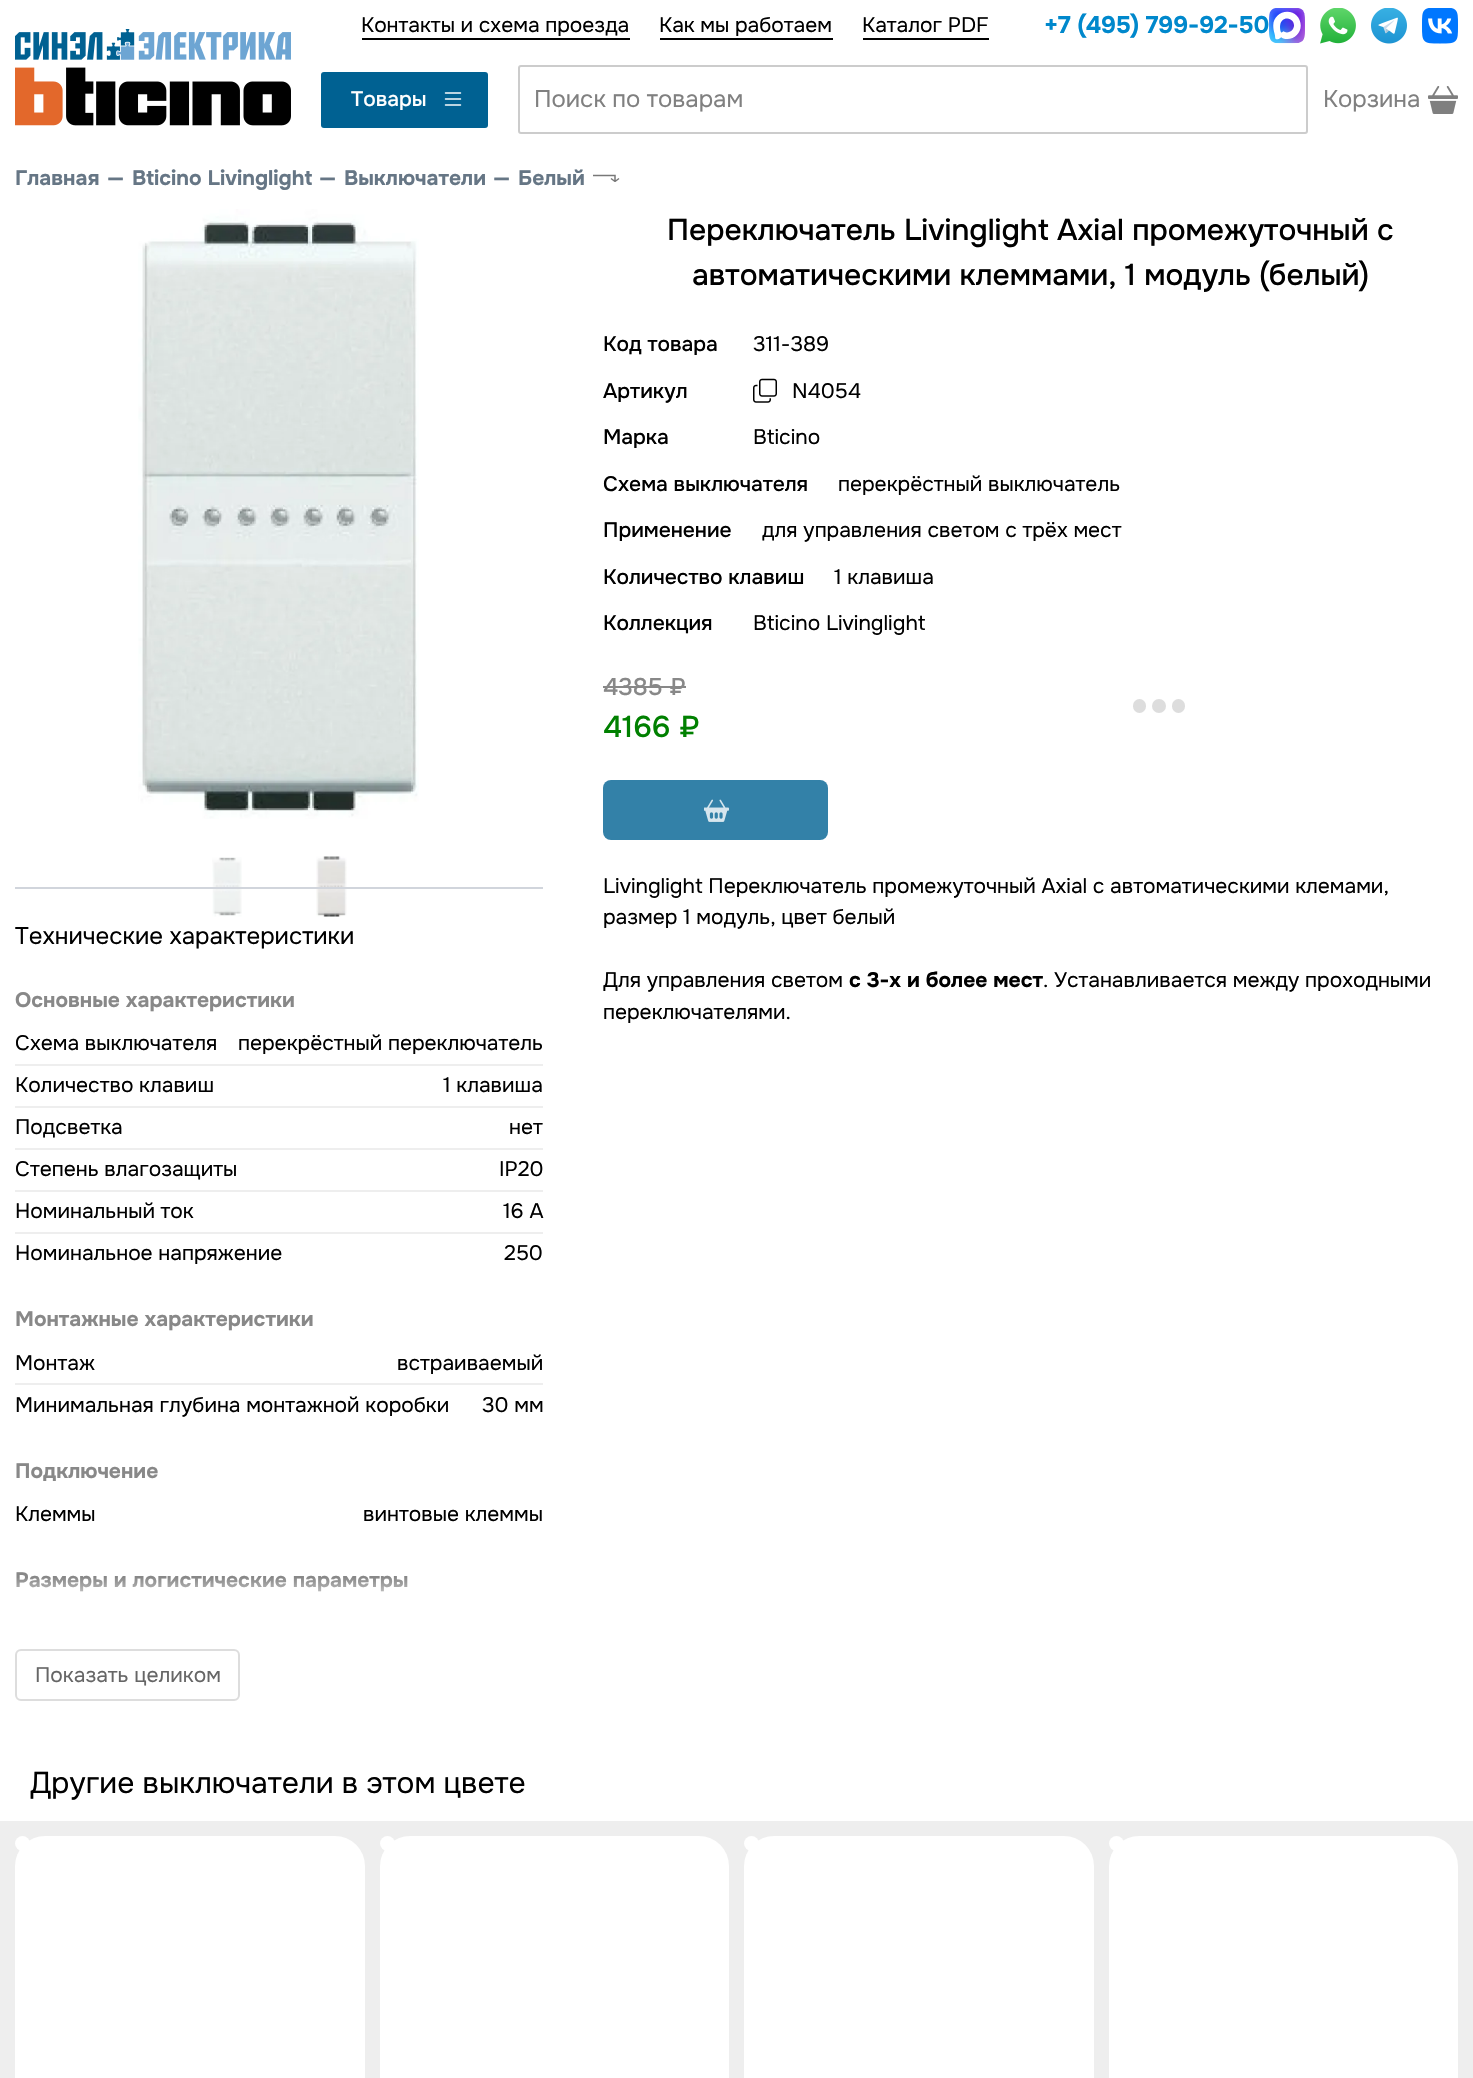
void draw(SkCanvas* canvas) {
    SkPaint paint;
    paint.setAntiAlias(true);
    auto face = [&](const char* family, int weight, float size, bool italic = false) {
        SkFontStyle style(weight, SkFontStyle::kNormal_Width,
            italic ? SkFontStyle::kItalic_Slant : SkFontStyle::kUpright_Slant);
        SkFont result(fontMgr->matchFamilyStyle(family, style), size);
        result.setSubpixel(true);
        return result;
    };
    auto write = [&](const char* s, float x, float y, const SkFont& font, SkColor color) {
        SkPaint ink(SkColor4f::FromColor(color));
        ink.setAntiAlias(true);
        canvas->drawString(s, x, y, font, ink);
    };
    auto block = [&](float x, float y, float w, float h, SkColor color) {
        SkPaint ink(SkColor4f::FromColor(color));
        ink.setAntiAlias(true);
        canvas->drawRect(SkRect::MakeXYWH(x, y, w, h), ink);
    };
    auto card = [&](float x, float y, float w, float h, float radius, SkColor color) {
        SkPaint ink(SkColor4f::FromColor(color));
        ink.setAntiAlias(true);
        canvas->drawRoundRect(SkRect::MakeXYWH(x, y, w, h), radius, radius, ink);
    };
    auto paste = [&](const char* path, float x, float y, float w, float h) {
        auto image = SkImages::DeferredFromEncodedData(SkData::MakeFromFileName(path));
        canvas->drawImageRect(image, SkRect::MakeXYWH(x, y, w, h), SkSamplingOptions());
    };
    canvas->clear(SK_ColorWHITE);
    paste("pic1.png", 15, 29, 276, 97);
    auto kFont1 = face("Onest", 400, 21);
    write("Контакты и схема проезда", 361, 32, kFont1, SK_ColorBLACK);
    block(362, 38, 268, 2, SK_ColorBLACK);
    write("Как мы работаем", 659, 32, kFont1, SK_ColorBLACK);
    block(660, 38, 173, 2, SK_ColorBLACK);
    write("Каталог PDF", 862, 32, kFont1, SK_ColorBLACK);
    block(863, 38, 126, 2, SK_ColorBLACK);
    auto kFont2 = face("Onest", 700, 24);
    write("+7 (495) 799-92-50", 1044, 33, kFont2, SkColorSetRGB(0, 136, 204));
    paste("pic2.png", 1269, 8, 36, 36);
    paste("pic3.png", 1320, 8, 36, 36);
    paste("pic4.png", 1371, 8, 36, 36);
    paste("pic5.png", 1422, 8, 36, 36);
    card(321, 72, 167, 56, 3, SkColorSetRGB(0, 97, 146));
    auto kFont3 = face("Onest", 500, 21);
    write("Товары", 351, 106, kFont3, SK_ColorWHITE);
    paste("pic6.png", 444, 92, 18, 14);
    paint.setStyle(SkPaint::kStroke_Style);
    paint.setStrokeWidth(2);
    paint.setColor(SkColorSetRGB(204, 204, 204));
    canvas->drawRoundRect(SkRect::MakeXYWH(519, 66, 788, 67), 2, 2, paint);
    auto kFont4 = face("Onest", 400, 24);
    write("Поиск по товарам", 534, 107, kFont4, SkColorSetRGB(128, 128, 128));
    write("Корзина", 1323, 107, kFont4, SkColorSetRGB(128, 128, 128));
    paste("pic7.png", 1428, 86, 30, 28);
    auto kFont5 = face("Onest", 700, 21);
    write("Главная", 15, 185, kFont5, SkColorSetRGB(102, 118, 133));
    write("—", 107, 185, kFont5, SkColorSetRGB(102, 118, 133));
    write("Bticino Livinglight", 132, 185, kFont5, SkColorSetRGB(102, 118, 133));
    write("—", 319, 185, kFont5, SkColorSetRGB(102, 118, 133));
    write("Выключатели", 344, 185, kFont5, SkColorSetRGB(102, 118, 133));
    write("—", 493, 185, kFont5, SkColorSetRGB(102, 118, 133));
    write("Белый", 518, 185, kFont5, SkColorSetRGB(102, 118, 133));
    canvas->save();
    canvas->clipRect(SkRect::MakeXYWH(593, 174, 27, 9));
    paint.setStrokeWidth(1.5f);
    paint.setColor(SkColorSetRGB(120, 120, 120));
    canvas->drawPath(SkPathBuilder().moveTo(592.5f, 175.5f).lineTo(615, 175.5f).lineTo(615, 181.5f).moveTo(615, 181.5f).lineTo(619, 178.5f).moveTo(615, 181.5f).lineTo(611, 178.5f).detach(), paint);
    canvas->restore();
    auto kFont6 = face("Onest", 500, 30);
    write("Переключатель Livinglight Axial промежуточный с", 667, 240, kFont6, SK_ColorBLACK);
    write("автоматическими клеммами, 1 модуль (белый)", 692, 285, kFont6, SK_ColorBLACK);
    write("Код товара", 603, 351, kFont3, SK_ColorBLACK);
    write("311-389", 753, 351, kFont1, SK_ColorBLACK);
    write("Артикул", 603, 398, kFont3, SK_ColorBLACK);
    paste("pic8.png", 753, 378, 24, 25);
    write("N4054", 792, 398, kFont1, SK_ColorBLACK);
    write("Марка", 603, 444, kFont3, SK_ColorBLACK);
    write("Bticino", 753, 444, kFont1, SK_ColorBLACK);
    write("Схема выключателя", 603, 491, kFont3, SK_ColorBLACK);
    write("перекрёстный выключатель", 838, 491, kFont1, SK_ColorBLACK);
    write("Применение", 603, 537, kFont3, SK_ColorBLACK);
    write("для управления светом с трёх мест", 762, 537, kFont1, SK_ColorBLACK);
    write("Количество клавиш", 603, 584, kFont3, SK_ColorBLACK);
    write("1 клавиша", 834, 584, kFont1, SK_ColorBLACK);
    write("Коллекция", 603, 630, kFont3, SK_ColorBLACK);
    write("Bticino Livinglight", 753, 630, kFont1, SK_ColorBLACK);
    auto kFont7 = face("Onest", 500, 24);
    write("4385 ₽", 603, 695, kFont7, SkColorSetRGB(136, 136, 136));
    block(603, 686, 83, 2, SkColorSetRGB(136, 136, 136));
    write("4166 ₽", 603, 737, kFont6, SkColorSetRGB(0, 128, 0));
    card(1133, 699, 13, 14, 6.5f, SkColorSetRGB(221, 221, 221));
    paint.setStyle(SkPaint::kFill_Style);
    paint.setColor(SkColorSetRGB(221, 221, 221));
    canvas->drawCircle(1159, 706, 7, paint);
    card(1172, 699, 13, 14, 6.5f, SkColorSetRGB(221, 221, 221));
    card(603, 780, 225, 60, 8, SkColorSetRGB(51, 129, 168));
    paste("pic9.png", 704, 799, 25, 23);
    write("Livinglight Переключатель промежуточный Axial с автоматическими клемами,", 603, 893, kFont1, SK_ColorBLACK);
    write("размер 1 модуль, цвет белый", 603, 924, kFont1, SK_ColorBLACK);
    write("Для управления светом", 603, 987, kFont1, SK_ColorBLACK);
    write("с 3-х и более мест", 849, 987, kFont5, SK_ColorBLACK);
    write(". Устанавливается между проходными", 1043, 987, kFont1, SK_ColorBLACK);
    write("переключателями.", 603, 1019, kFont1, SK_ColorBLACK);
    paste("pic10.png", 138, 209, 281, 610);
    paste("pic11.png", 212, 857, 30, 60);
    paste("pic12.png", 316, 856, 31, 61);
    block(15, 887, 528, 2, SkColorSetRGB(209, 213, 220));
    write("Технические характеристики", 15, 944, kFont4, SK_ColorBLACK);
    write("Основные характеристики", 15, 1007, kFont5, SkColorSetRGB(136, 136, 136));
    block(15, 1064, 528, 2, SkColorSetRGB(238, 238, 238));
    write("Схема выключателя", 15, 1050, kFont1, SK_ColorBLACK);
    write("перекрёстный переключатель", 238, 1050, kFont1, SK_ColorBLACK);
    block(15, 1106, 528, 2, SkColorSetRGB(238, 238, 238));
    write("Количество клавиш", 15, 1092, kFont1, SK_ColorBLACK);
    write("1 клавиша", 443, 1092, kFont1, SK_ColorBLACK);
    block(15, 1148, 528, 2, SkColorSetRGB(238, 238, 238));
    write("Подсветка", 15, 1134, kFont1, SK_ColorBLACK);
    write("нет", 509, 1134, kFont1, SK_ColorBLACK);
    block(15, 1190, 528, 2, SkColorSetRGB(238, 238, 238));
    write("Степень влагозащиты", 15, 1176, kFont1, SK_ColorBLACK);
    write("IP20", 499, 1176, kFont1, SK_ColorBLACK);
    block(15, 1232, 528, 2, SkColorSetRGB(238, 238, 238));
    write("Номинальный ток", 15, 1218, kFont1, SK_ColorBLACK);
    write("16 А", 503, 1218, kFont1, SK_ColorBLACK);
    write("Номинальное напряжение", 15, 1260, kFont1, SK_ColorBLACK);
    write("250", 504, 1260, kFont1, SK_ColorBLACK);
    write("Монтажные характеристики", 15, 1326, kFont5, SkColorSetRGB(136, 136, 136));
    block(15, 1383, 528, 2, SkColorSetRGB(238, 238, 238));
    write("Монтаж", 15, 1370, kFont1, SK_ColorBLACK);
    write("встраиваемый", 397, 1370, kFont1, SK_ColorBLACK);
    write("Минимальная глубина монтажной коробки", 15, 1412, kFont1, SK_ColorBLACK);
    write("30 мм", 482, 1412, kFont1, SK_ColorBLACK);
    write("Подключение", 15, 1478, kFont5, SkColorSetRGB(136, 136, 136));
    write("Клеммы", 15, 1521, kFont1, SK_ColorBLACK);
    write("винтовые клеммы", 363, 1521, kFont1, SK_ColorBLACK);
    write("Размеры и логистические параметры", 15, 1587, kFont5, SkColorSetRGB(136, 136, 136));
    {
        const SkColor colors[] = {SkColorSetARGB(0, 255, 255, 255), SK_ColorWHITE, SK_ColorWHITE};
        const float stops[] = {0, 0.6f, 1};
        const SkPoint ends[] = {{279, 1577}, {279, 1637}};
        paint.setShader(SkGradientShader::MakeLinear(ends, colors, stops, 3, SkTileMode::kClamp));
        paint.setAlpha(255);
    }
    canvas->drawRect(SkRect::MakeXYWH(16, 1578, 392, 14), paint);
    paint.setStyle(SkPaint::kStroke_Style);
    paint.setStrokeWidth(2);
    paint.setShader(nullptr);
    paint.setColor(SkColorSetRGB(221, 221, 221));
    canvas->drawRoundRect(SkRect::MakeXYWH(16, 1650, 223, 50), 5, 5, paint);
    write("Показать целиком", 35, 1682, kFont1, SkColorSetRGB(102, 102, 102));
    auto kFont8 = face("Onest", 400, 30);
    write("Другие выключатели в этом цвете", 30, 1793, kFont8, SK_ColorBLACK);
    block(0, 1821, 1473, 257, SkColorSetRGB(238, 238, 238));
    card(15, 1836, 350, 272, 30, SK_ColorWHITE);
    paint.setStyle(SkPaint::kFill_Style);
    paint.setColor(SK_ColorWHITE);
    canvas->drawCircle(22.5f, 1843.5f, 7.5f, paint);
    card(380, 1836, 349, 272, 30, SK_ColorWHITE);
    canvas->drawCircle(387.5f, 1843.5f, 7.5f, paint);
    card(744, 1836, 350, 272, 30, SK_ColorWHITE);
    canvas->drawCircle(751.5f, 1843.5f, 7.5f, paint);
    card(1109, 1836, 349, 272, 30, SK_ColorWHITE);
    canvas->drawCircle(1116.5f, 1843.5f, 7.5f, paint);
}
